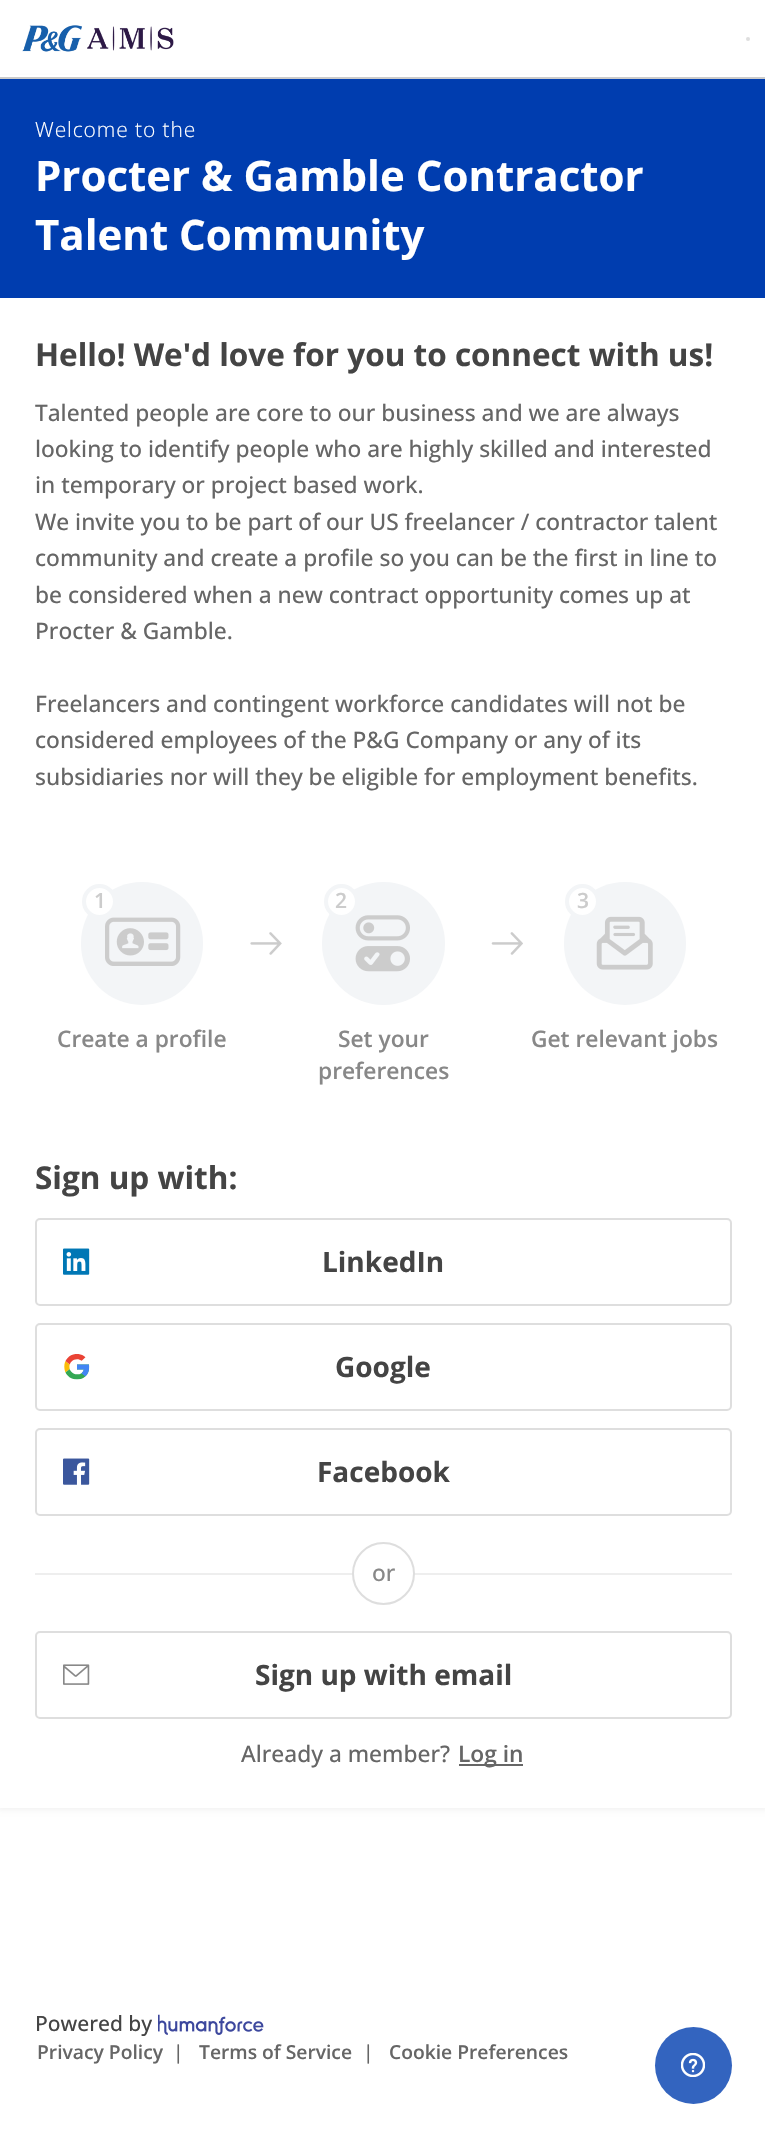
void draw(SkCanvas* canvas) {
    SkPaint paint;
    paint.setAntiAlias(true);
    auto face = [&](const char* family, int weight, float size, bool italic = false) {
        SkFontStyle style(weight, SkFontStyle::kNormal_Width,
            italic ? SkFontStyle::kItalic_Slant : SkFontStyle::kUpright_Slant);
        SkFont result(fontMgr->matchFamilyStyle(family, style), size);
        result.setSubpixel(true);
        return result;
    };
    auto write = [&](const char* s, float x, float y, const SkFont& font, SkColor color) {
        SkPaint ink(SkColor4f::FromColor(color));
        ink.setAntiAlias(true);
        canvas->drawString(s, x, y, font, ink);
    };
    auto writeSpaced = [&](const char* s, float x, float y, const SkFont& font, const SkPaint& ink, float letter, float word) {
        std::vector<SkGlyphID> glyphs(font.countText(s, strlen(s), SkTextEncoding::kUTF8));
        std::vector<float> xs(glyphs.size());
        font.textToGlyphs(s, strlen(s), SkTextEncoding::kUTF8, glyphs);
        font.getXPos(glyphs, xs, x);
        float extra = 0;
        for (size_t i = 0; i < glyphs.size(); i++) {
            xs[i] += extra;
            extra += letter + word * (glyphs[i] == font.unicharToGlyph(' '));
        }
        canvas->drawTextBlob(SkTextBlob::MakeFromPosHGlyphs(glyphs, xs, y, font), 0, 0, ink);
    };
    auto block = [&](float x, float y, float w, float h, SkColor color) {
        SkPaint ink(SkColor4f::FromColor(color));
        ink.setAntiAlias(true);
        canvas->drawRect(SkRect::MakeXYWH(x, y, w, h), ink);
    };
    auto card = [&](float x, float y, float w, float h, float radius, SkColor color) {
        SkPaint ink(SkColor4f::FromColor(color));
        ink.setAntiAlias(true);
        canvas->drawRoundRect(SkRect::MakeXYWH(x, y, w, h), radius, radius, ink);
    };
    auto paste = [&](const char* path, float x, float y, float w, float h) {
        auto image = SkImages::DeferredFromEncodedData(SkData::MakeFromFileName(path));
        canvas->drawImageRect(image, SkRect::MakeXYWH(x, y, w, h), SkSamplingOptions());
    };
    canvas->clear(SK_ColorWHITE);
    paint.setColor(SkColorSetARGB(13, 0, 0, 0));
    paint.setMaskFilter(SkMaskFilter::MakeBlur(kNormal_SkBlurStyle, 2.5f));
    canvas->drawRect(SkRect::MakeXYWH(-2, 77, 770, 1733), paint);
    paint.setMaskFilter(nullptr);
    block(0, 75, 765, 2, SK_ColorWHITE);
    paste("pic1.png", 22, 25, 152, 27);
    paint.setColor(SkColorSetRGB(222, 222, 222));
    canvas->drawCircle(748, 39, 2, paint);
    block(0, 77, 765, 2, SkColorSetRGB(202, 202, 202));
    block(0, 79, 765, 219, SkColorSetRGB(0, 61, 175));
    auto kFont1 = face("Open Sans", 300, 21);
    paint.setColor(SK_ColorWHITE);
    writeSpaced("Welcome to the", 35, 137, kFont1, paint, 0.9f, 0);
    auto kFont2 = face("Open Sans", 700, 42);
    write("Procter & Gamble Contractor", 35, 191, kFont2, SK_ColorWHITE);
    write("Talent Community", 35, 250, kFont2, SK_ColorWHITE);
    block(0, 298, 765, 1510, SK_ColorWHITE);
    auto kFont3 = face("Open Sans", 700, 31.5f);
    write("Hello! We'd love for you to connect with us!", 35, 366, kFont3, SkColorSetRGB(68, 68, 68));
    auto kFont4 = face("Open Sans", 500, 22.75f);
    write("Talented people are core to our business and we are always", 35, 421, kFont4, SkColorSetRGB(102, 102, 102));
    write("looking to identify people who are highly skilled and interested", 35, 457, kFont4, SkColorSetRGB(102, 102, 102));
    write("in temporary or project based work.", 35, 493, kFont4, SkColorSetRGB(102, 102, 102));
    write("We invite you to be part of our US freelancer / contractor talent", 35, 530, kFont4, SkColorSetRGB(102, 102, 102));
    write("community and create a profile so you can be the first in line to", 35, 566, kFont4, SkColorSetRGB(102, 102, 102));
    write("be considered when a new contract opportunity comes up at", 35, 603, kFont4, SkColorSetRGB(102, 102, 102));
    write("Procter & Gamble.", 35, 639, kFont4, SkColorSetRGB(102, 102, 102));
    write("Freelancers and contingent workforce candidates will not be", 35, 712, kFont4, SkColorSetRGB(102, 102, 102));
    write("considered employees of the P&G Company or any of its", 35, 748, kFont4, SkColorSetRGB(102, 102, 102));
    write("subsidiaries nor will they be eligible for employment benefits.", 35, 785, kFont4, SkColorSetRGB(102, 102, 102));
    card(81, 882, 122, 123, 61, SkColorSetRGB(243, 245, 247));
    paste("pic2.png", 105, 917, 76, 49);
    canvas->drawCircle(99.5f, 901.5f, 15.5f, paint);
    paint.setStyle(SkPaint::kStroke_Style);
    paint.setStrokeWidth(4);
    paint.setColor(SkColorSetRGB(243, 245, 247));
    canvas->drawCircle(99.5f, 901.5f, 15.5f, paint);
    auto kFont5 = face("Open Sans", 600, 21);
    write("1", 94, 908, kFont5, SkColorSetRGB(204, 204, 204));
    paste("pic3.png", 250, 932, 32, 23);
    auto kFont6 = face("Open Sans", 600, 22.75f);
    write("Create a profile", 57, 1047, kFont6, SkColorSetRGB(136, 136, 136));
    paint.setStyle(SkPaint::kFill_Style);
    canvas->drawCircle(383.5f, 943.5f, 61.5f, paint);
    paste("pic4.png", 355, 915, 55, 57);
    paint.setColor(SK_ColorWHITE);
    canvas->drawCircle(341.5f, 901.5f, 15.5f, paint);
    paint.setStyle(SkPaint::kStroke_Style);
    paint.setColor(SkColorSetRGB(243, 245, 247));
    canvas->drawCircle(341.5f, 901.5f, 15.5f, paint);
    write("2", 335, 908, kFont5, SkColorSetRGB(204, 204, 204));
    paste("pic5.png", 491, 932, 32, 23);
    write("Set your", 338, 1047, kFont6, SkColorSetRGB(136, 136, 136));
    write("preferences", 318, 1079, kFont6, SkColorSetRGB(136, 136, 136));
    card(564, 882, 122, 123, 61, SkColorSetRGB(243, 245, 247));
    paste("pic6.png", 596, 916, 57, 54);
    paint.setStyle(SkPaint::kFill_Style);
    paint.setColor(SK_ColorWHITE);
    canvas->drawCircle(582.5f, 901.5f, 15.5f, paint);
    paint.setStyle(SkPaint::kStroke_Style);
    paint.setColor(SkColorSetRGB(243, 245, 247));
    canvas->drawCircle(582.5f, 901.5f, 15.5f, paint);
    write("3", 577, 908, kFont5, SkColorSetRGB(204, 204, 204));
    write("Get relevant jobs", 531, 1047, kFont6, SkColorSetRGB(136, 136, 136));
    write("Sign up with:", 35, 1189, kFont3, SkColorSetRGB(68, 68, 68));
    paint.setStrokeWidth(2);
    paint.setColor(SkColorSetRGB(222, 222, 222));
    canvas->drawRoundRect(SkRect::MakeXYWH(36, 1219, 695, 86), 4, 4, paint);
    paste("pic7.png", 63, 1248, 27, 27);
    auto kFont7 = face("Open Sans", 700, 28);
    write("LinkedIn", 322, 1272, kFont7, SkColorSetRGB(68, 68, 68));
    canvas->drawRoundRect(SkRect::MakeXYWH(36, 1324, 695, 86), 4, 4, paint);
    paste("pic8.png", 64, 1354, 26, 26);
    write("Google", 335, 1377, kFont7, SkColorSetRGB(68, 68, 68));
    canvas->drawRoundRect(SkRect::MakeXYWH(36, 1429, 695, 86), 4, 4, paint);
    paste("pic9.png", 63, 1458, 27, 27);
    write("Facebook", 317, 1482, kFont7, SkColorSetRGB(68, 68, 68));
    block(35, 1573, 697, 2, SkColorSetRGB(238, 238, 238));
    paint.setStyle(SkPaint::kFill_Style);
    paint.setColor(SK_ColorWHITE);
    canvas->drawCircle(383.5f, 1573.5f, 30.5f, paint);
    paint.setStyle(SkPaint::kStroke_Style);
    paint.setColor(SkColorSetRGB(222, 222, 222));
    canvas->drawCircle(383.5f, 1573.5f, 30.5f, paint);
    write("or", 372, 1581, kFont4, SkColorSetRGB(136, 136, 136));
    canvas->drawRoundRect(SkRect::MakeXYWH(36, 1632, 695, 86), 4, 4, paint);
    paste("pic10.png", 63, 1664, 27, 21);
    write("Sign up with email", 255, 1685, kFont7, SkColorSetRGB(68, 68, 68));
    write("Already a member?", 241, 1762, kFont4, SkColorSetRGB(102, 102, 102));
    block(459, 1764, 64, 2, SkColorSetRGB(102, 102, 102));
    write("Log in", 458, 1762, kFont6, SkColorSetRGB(102, 102, 102));
    auto kFont8 = face("Open Sans", 500, 21);
    write("Powered by", 35, 2031, kFont8, SkColorSetRGB(68, 68, 68));
    paste("pic11.png", 158, 2014, 106, 21);
    auto kFont9 = face("Open Sans", 600, 19.25f);
    write("Privacy Policy", 37, 2059, kFont9, SkColorSetRGB(102, 102, 102));
    auto kFont10 = face("Open Sans", 500, 19.25f);
    write("|", 173, 2059, kFont10, SkColorSetRGB(102, 102, 102));
    write("Terms of Service", 199, 2059, kFont9, SkColorSetRGB(102, 102, 102));
    write("|", 363, 2059, kFont10, SkColorSetRGB(102, 102, 102));
    write("Cookie Preferences", 389, 2059, kFont9, SkColorSetRGB(102, 102, 102));
    paint.setStyle(SkPaint::kFill_Style);
    paint.setColor(SkColorSetRGB(51, 100, 191));
    canvas->drawCircle(693.5f, 2065.5f, 38.5f, paint);
    paste("pic12.png", 681, 2053, 24, 24);
}
